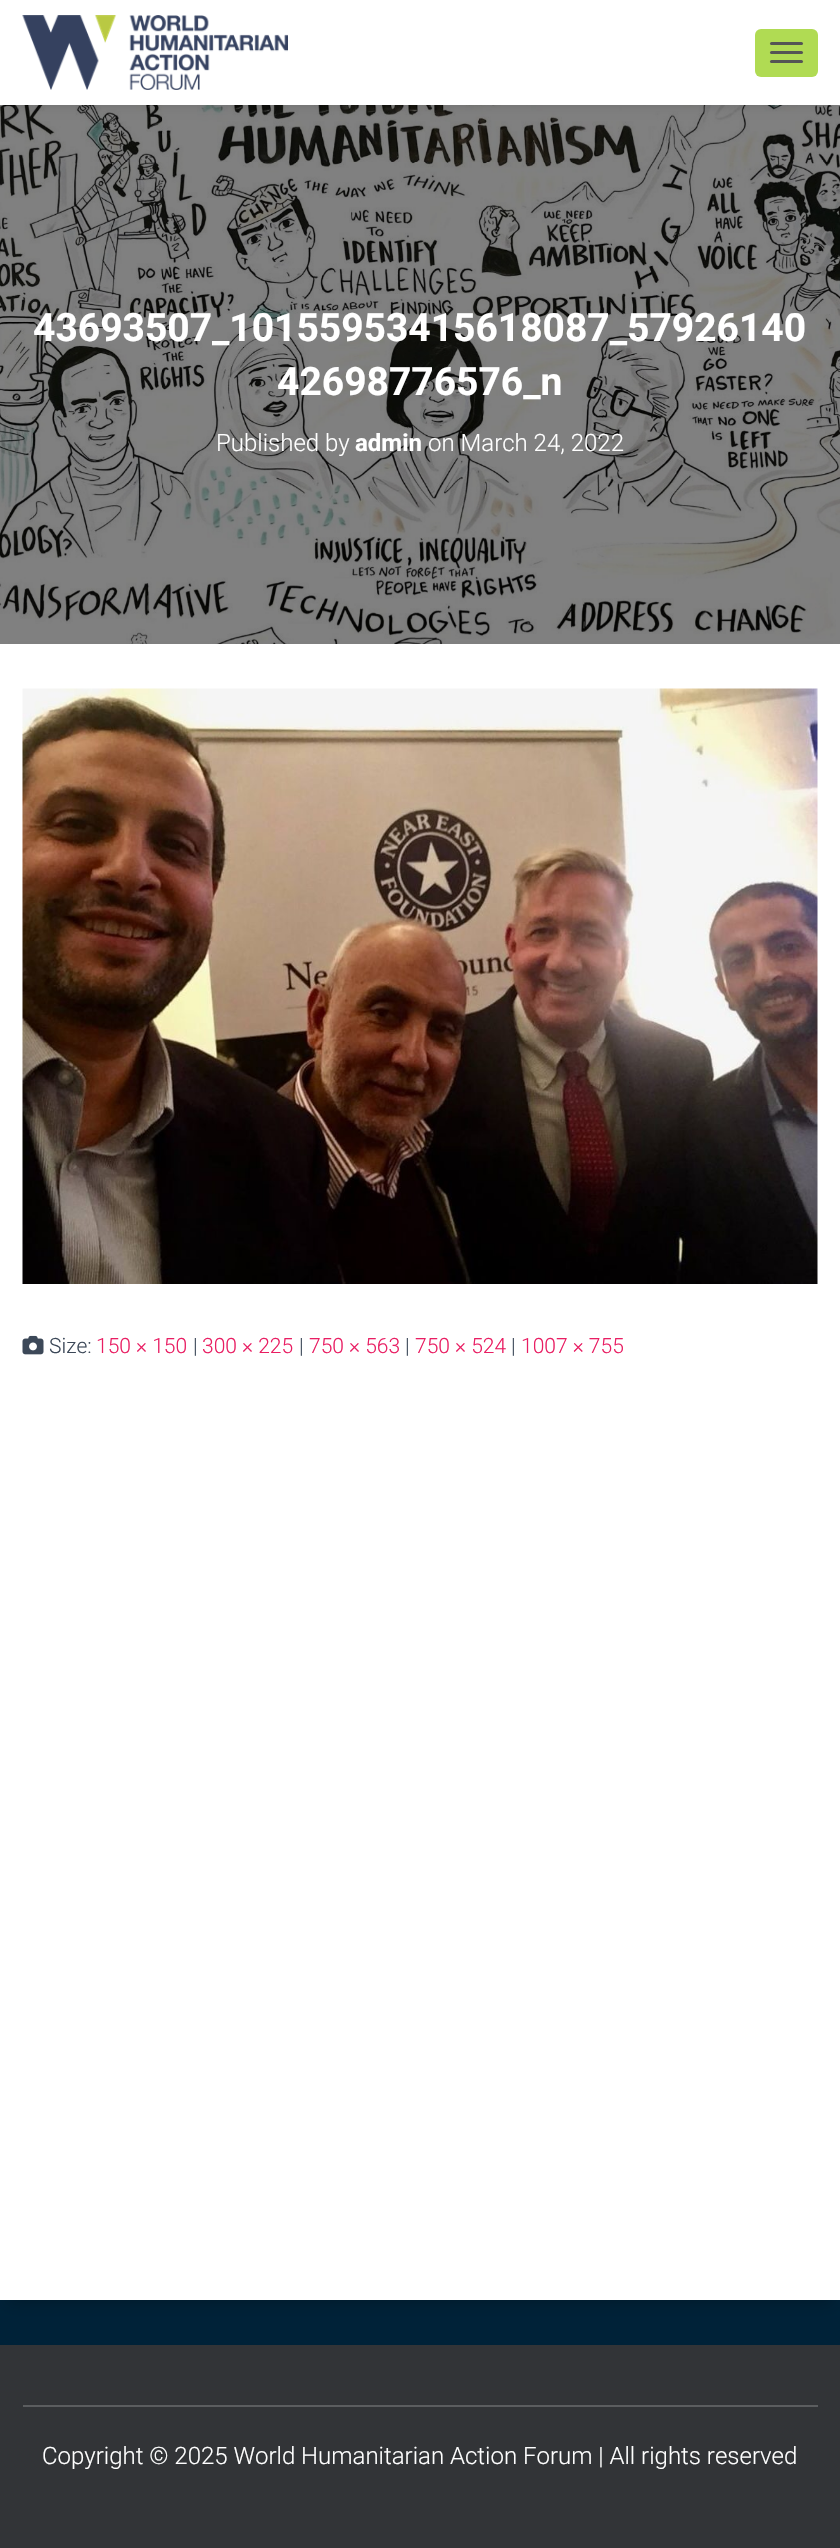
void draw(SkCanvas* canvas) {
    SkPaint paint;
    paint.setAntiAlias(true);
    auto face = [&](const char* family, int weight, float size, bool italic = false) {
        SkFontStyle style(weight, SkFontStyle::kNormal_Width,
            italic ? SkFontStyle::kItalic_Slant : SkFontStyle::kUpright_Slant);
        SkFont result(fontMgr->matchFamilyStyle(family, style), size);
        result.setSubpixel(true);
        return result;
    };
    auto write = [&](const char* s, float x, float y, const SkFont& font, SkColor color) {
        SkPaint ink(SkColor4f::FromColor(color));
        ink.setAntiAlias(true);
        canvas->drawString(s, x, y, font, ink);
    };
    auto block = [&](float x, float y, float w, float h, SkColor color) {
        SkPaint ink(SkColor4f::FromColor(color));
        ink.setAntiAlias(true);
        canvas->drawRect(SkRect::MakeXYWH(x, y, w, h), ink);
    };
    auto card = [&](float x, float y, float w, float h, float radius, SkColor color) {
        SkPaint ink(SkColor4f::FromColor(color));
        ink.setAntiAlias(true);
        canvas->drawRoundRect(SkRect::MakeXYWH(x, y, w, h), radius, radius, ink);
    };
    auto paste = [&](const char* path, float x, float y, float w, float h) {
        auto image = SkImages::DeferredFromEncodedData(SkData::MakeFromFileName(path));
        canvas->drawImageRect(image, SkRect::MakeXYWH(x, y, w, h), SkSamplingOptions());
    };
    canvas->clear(SkColorSetRGB(0, 34, 56));
    paste("pic2.png", 0, 105, 840, 539);
    paint.setColor(SkColorSetARGB(107, 0, 0, 0));
    paint.setMaskFilter(SkMaskFilter::MakeBlur(kNormal_SkBlurStyle, 7.5f));
    canvas->drawRect(SkRect::MakeXYWH(9, 11, 822, 87), paint);
    paint.setMaskFilter(nullptr);
    block(0, 0, 840, 105, SK_ColorWHITE);
    paste("pic1.png", 22, 15, 266, 75);
    card(755, 29, 63, 48, 6, SkColorSetRGB(176, 219, 83));
    card(770, 42, 33, 3, 1.5f, SkColorSetRGB(85, 85, 85));
    card(770, 51, 33, 3, 1.5f, SkColorSetRGB(85, 85, 85));
    card(770, 60, 33, 3, 1.5f, SkColorSetRGB(85, 85, 85));
    auto kFont1 = face("Roboto", 700, 39);
    write("43693507_10155953415618087_57926140", 33, 341, kFont1, SK_ColorWHITE);
    write("42698776576_n", 277, 395, kFont1, SK_ColorWHITE);
    auto kFont2 = face("Roboto", 300, 24);
    write("Published by", 216, 451, kFont2, SK_ColorWHITE);
    auto kFont3 = face("Roboto", 700, 24);
    write("admin", 355, 451, kFont3, SK_ColorWHITE);
    write("on March 24, 2022", 428, 451, kFont2, SK_ColorWHITE);
    paint.setColor(SkColorSetARGB(51, 0, 0, 0));
    paint.setMaskFilter(SkMaskFilter::MakeBlur(kNormal_SkBlurStyle, 7.5f));
    canvas->drawRect(SkRect::MakeXYWH(8, 663, 825, 1641), paint);
    paint.setMaskFilter(nullptr);
    block(0, 644, 840, 1656, SK_ColorWHITE);
    paste("pic3.png", 22, 688, 796, 596);
    paste("pic4.png", 22, 1335, 22, 20);
    auto kFont4 = face("Roboto", 300, 21);
    write("Size:", 49, 1353, kFont4, SkColorSetRGB(60, 72, 88));
    write("150 × 150", 96, 1353, kFont4, SkColorSetRGB(233, 30, 99));
    write("|", 193, 1353, kFont4, SkColorSetRGB(60, 72, 88));
    write("300 × 225", 202, 1353, kFont4, SkColorSetRGB(233, 30, 99));
    write("|", 299, 1353, kFont4, SkColorSetRGB(60, 72, 88));
    write("750 × 563", 309, 1353, kFont4, SkColorSetRGB(233, 30, 99));
    write("|", 405, 1353, kFont4, SkColorSetRGB(60, 72, 88));
    write("750 × 524", 415, 1353, kFont4, SkColorSetRGB(233, 30, 99));
    write("|", 511, 1353, kFont4, SkColorSetRGB(60, 72, 88));
    write("1007 × 755", 521, 1353, kFont4, SkColorSetRGB(233, 30, 99));
    block(0, 2345, 840, 203, SkColorSetRGB(50, 52, 55));
    block(23, 2405, 795, 2, SkColorSetRGB(91, 93, 95));
    write("Copyright © 2025 World Humanitarian Action Forum | All rights reserved", 42, 2464, kFont2, SK_ColorWHITE);
}
